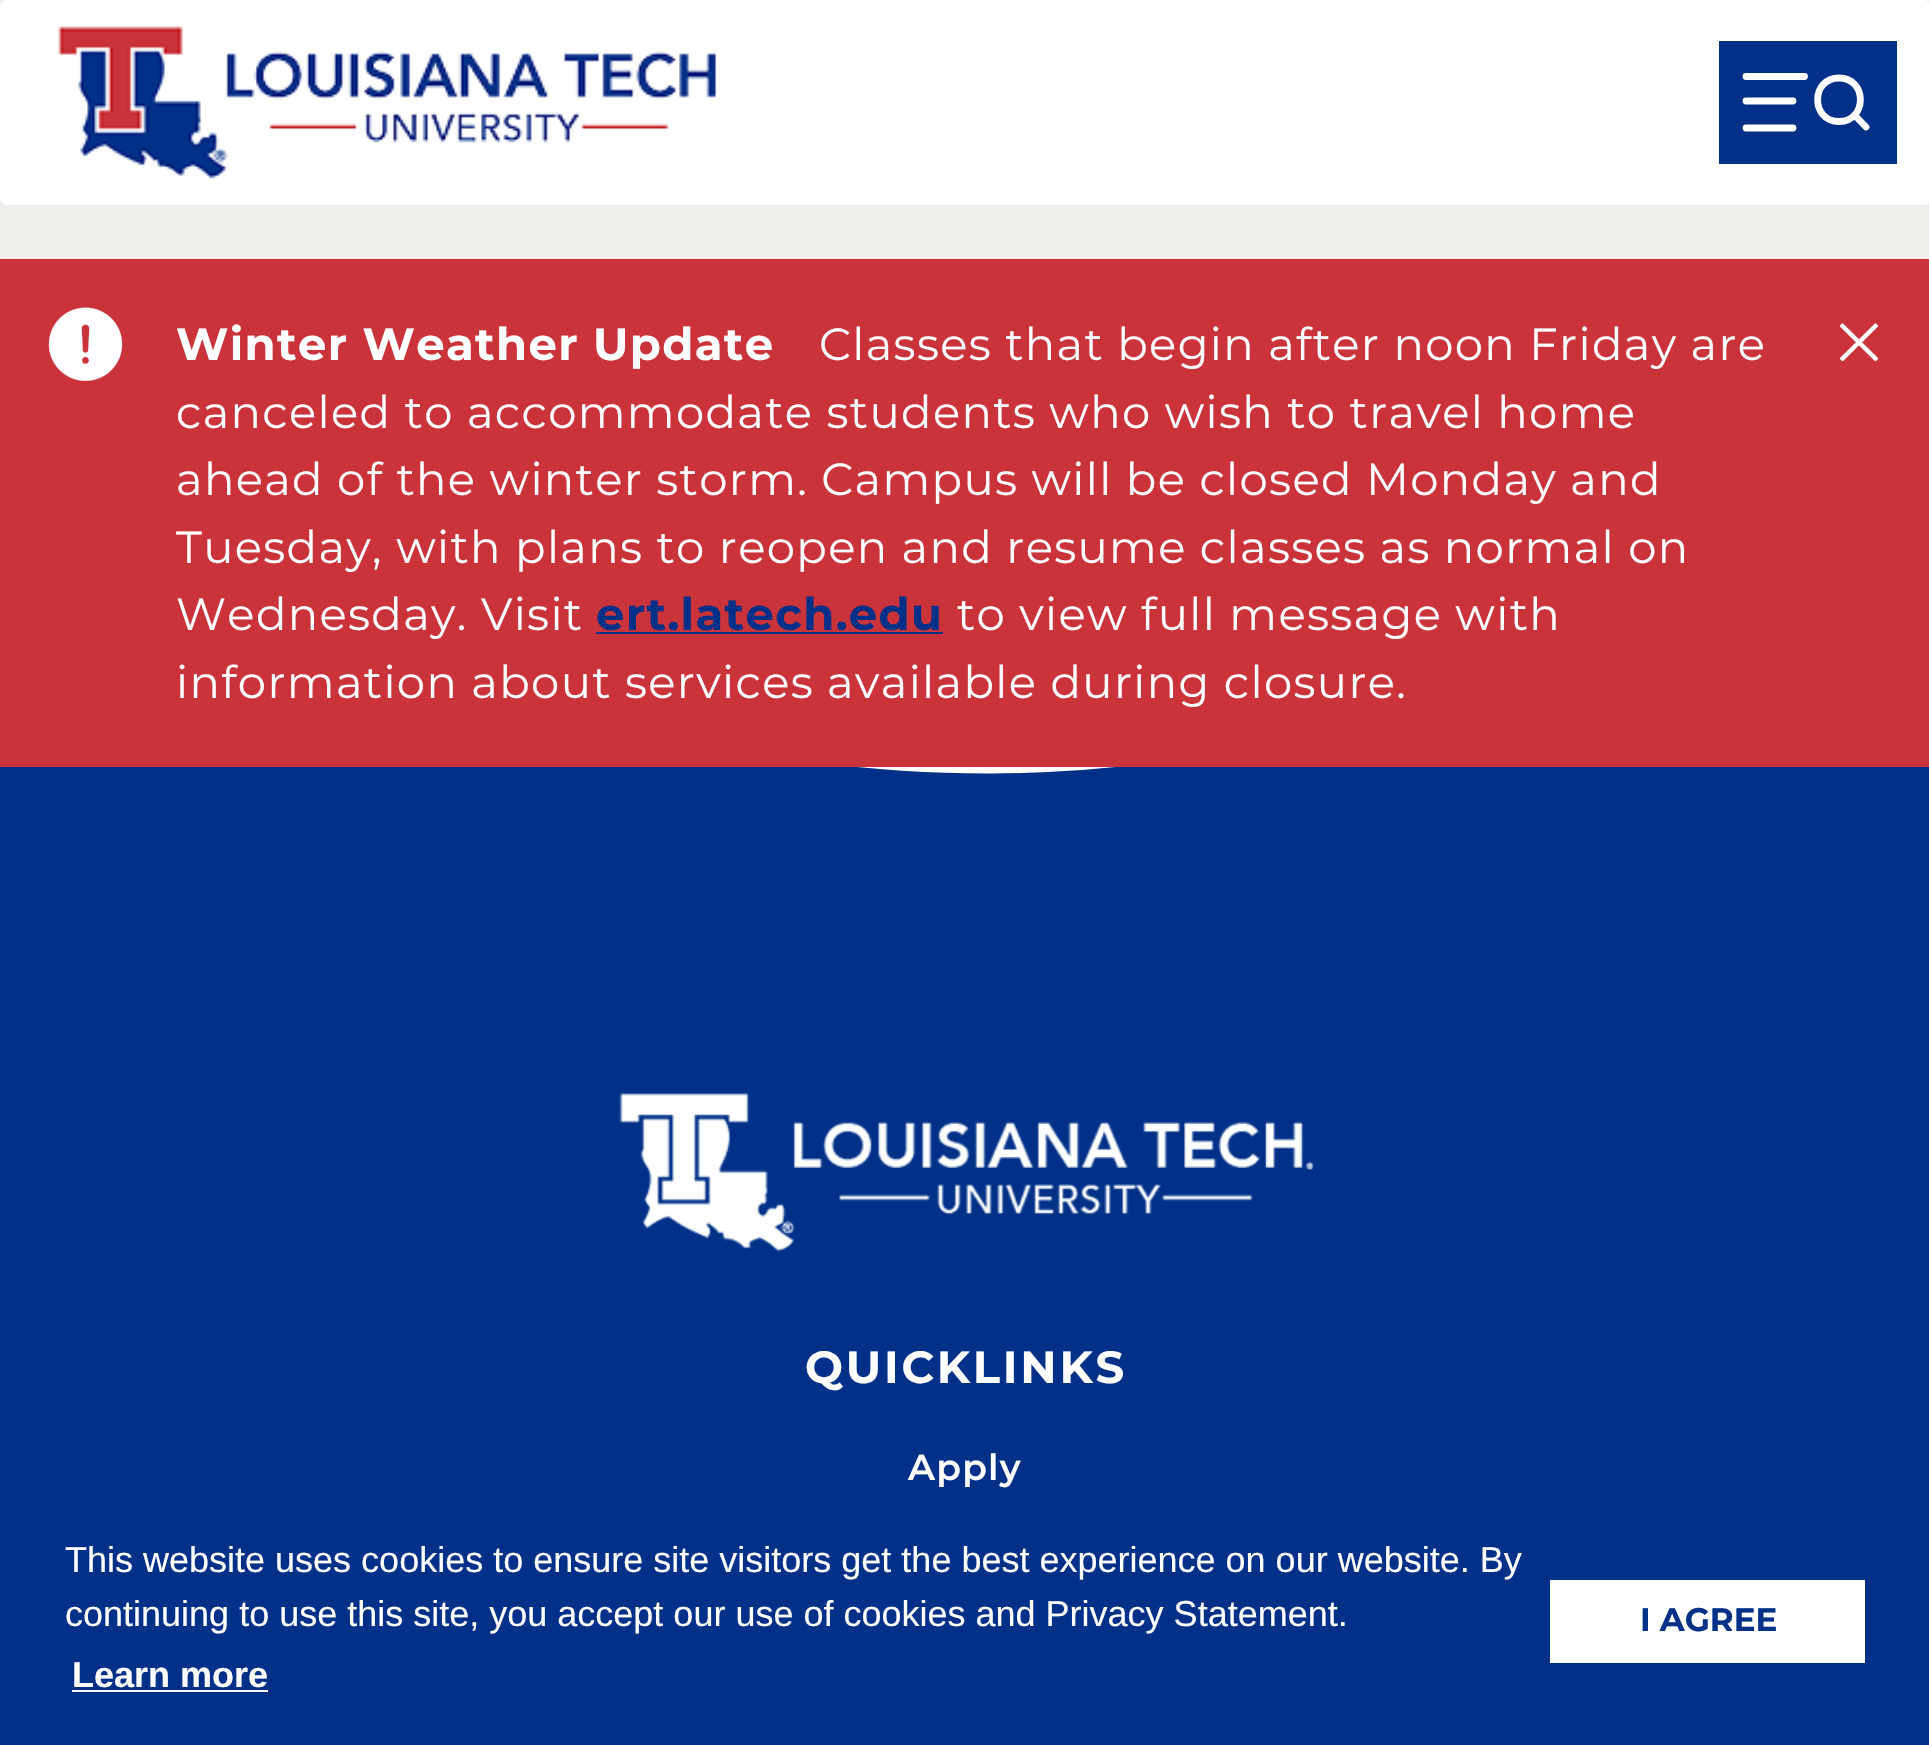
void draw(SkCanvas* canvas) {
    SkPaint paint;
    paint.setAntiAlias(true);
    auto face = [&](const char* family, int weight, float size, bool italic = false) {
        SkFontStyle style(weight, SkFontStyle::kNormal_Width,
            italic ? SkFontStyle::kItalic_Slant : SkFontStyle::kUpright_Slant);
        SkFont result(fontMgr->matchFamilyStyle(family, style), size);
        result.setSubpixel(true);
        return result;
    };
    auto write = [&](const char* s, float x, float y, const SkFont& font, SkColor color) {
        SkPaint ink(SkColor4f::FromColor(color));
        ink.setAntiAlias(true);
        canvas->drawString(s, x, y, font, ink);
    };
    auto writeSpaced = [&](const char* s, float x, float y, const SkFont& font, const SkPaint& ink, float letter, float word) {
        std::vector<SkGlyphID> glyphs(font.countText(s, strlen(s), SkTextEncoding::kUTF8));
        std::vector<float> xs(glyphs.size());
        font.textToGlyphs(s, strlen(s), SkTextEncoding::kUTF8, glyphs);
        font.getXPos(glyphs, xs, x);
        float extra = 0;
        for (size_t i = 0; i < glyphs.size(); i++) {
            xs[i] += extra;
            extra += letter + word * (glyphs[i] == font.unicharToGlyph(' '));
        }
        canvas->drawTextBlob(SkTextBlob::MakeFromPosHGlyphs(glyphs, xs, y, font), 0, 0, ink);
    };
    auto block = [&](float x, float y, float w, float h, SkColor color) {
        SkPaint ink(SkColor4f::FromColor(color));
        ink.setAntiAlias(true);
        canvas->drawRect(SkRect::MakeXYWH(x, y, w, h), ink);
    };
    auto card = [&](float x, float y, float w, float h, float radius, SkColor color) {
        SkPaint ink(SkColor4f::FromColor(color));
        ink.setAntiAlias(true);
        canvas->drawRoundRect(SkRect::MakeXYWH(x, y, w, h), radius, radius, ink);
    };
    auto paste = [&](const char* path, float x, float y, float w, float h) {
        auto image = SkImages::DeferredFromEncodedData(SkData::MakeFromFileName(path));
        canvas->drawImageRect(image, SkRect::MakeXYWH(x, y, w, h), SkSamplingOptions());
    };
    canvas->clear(SkColorSetRGB(240, 238, 235));
    card(0, 0, 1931, 205, 7, SK_ColorWHITE);
    paste("pic1.png", 58, 25, 659, 154);
    block(1719, 41, 178, 123, SkColorSetRGB(0, 48, 135));
    paint.setStyle(SkPaint::kStroke_Style);
    paint.setStrokeWidth(6.8f);
    paint.setStrokeCap(SkPaint::kRound_Cap);
    paint.setColor(SK_ColorWHITE);
    canvas->drawPath(SkPathBuilder().moveTo(1746, 76.5f).lineTo(1804.5f, 76.5f).detach(), paint);
    canvas->drawPath(SkPathBuilder().moveTo(1746, 101).lineTo(1793, 101).moveTo(1746, 128).lineTo(1793, 128).detach(), paint);
    paint.setStrokeJoin(SkPaint::kRound_Join);
    canvas->drawPath(SkPathBuilder().moveTo(1839, 121.5f).cubicTo(1867.5f, 121.5f, 1867.5f, 78, 1839, 78).cubicTo(1810.5f, 78, 1810.5f, 121.5f, 1839, 121.5f).close().moveTo(1866, 127).lineTo(1854.5f, 115).detach(), paint);
    block(0, 259, 1929, 508, SkColorSetRGB(203, 51, 59));
    paste("pic2.png", 48, 307, 75, 74);
    auto kFont1 = face("Montserrat", 700, 45);
    paint.setStyle(SkPaint::kFill_Style);
    writeSpaced("Winter Weather Update", 176, 360, kFont1, paint, 1.35f, 0);
    auto kFont2 = face("Montserrat", 400, 45);
    writeSpaced("Classes that begin after noon Friday are", 819, 360, kFont2, paint, 1.35f, 0);
    writeSpaced("canceled to accommodate students who wish to travel home", 176, 428, kFont2, paint, 1.35f, 0);
    writeSpaced("ahead of the winter storm. Campus will be closed Monday and", 176, 495, kFont2, paint, 1.35f, 0);
    writeSpaced("Tuesday, with plans to reopen and resume classes as normal on", 176, 563, kFont2, paint, 1.35f, 0);
    writeSpaced("Wednesday. Visit", 176, 630, kFont2, paint, 1.35f, 0);
    paint.setColor(SkColorSetRGB(0, 48, 135));
    writeSpaced("ert.latech.edu", 596, 630, kFont1, paint, 1.35f, 0);
    block(596, 632, 347, 2, SkColorSetRGB(0, 48, 135));
    paint.setColor(SK_ColorWHITE);
    writeSpaced("to view full message with", 957, 630, kFont2, paint, 1.35f, 0);
    writeSpaced("information about services available during closure.", 176, 698, kFont2, paint, 1.35f, 0);
    canvas->save();
    canvas->clipPath(SkPathBuilder().moveTo(1878.5f, 322).lineTo(1878.5f, 361).lineTo(1839.5f, 361).lineTo(1839.5f, 322).close().detach(), true);
    paint.setStyle(SkPaint::kStroke_Style);
    paint.setStrokeWidth(4.5f);
    paint.setStrokeCap(SkPaint::kButt_Cap);
    paint.setStrokeJoin(SkPaint::kMiter_Join);
    canvas->drawPath(SkPathBuilder().moveTo(1877, 360).lineTo(1841, 324.5f).moveTo(1877, 324.5f).lineTo(1841, 360).detach(), paint);
    canvas->restore();
    paste("pic3.png", 0, 767, 1929, 187);
    block(0, 954, 1929, 791, SkColorSetRGB(0, 48, 135));
    paste("pic4.png", 619, 1093, 695, 159);
    paint.setStyle(SkPaint::kFill_Style);
    writeSpaced("QUICKLINKS", 805, 1383, kFont1, paint, 2.75f, 0);
    auto kFont3 = face("Montserrat", 600, 36);
    writeSpaced("Apply", 908, 1480, kFont3, paint, 1.25f, 0);
    auto kFont4 = face("Liberation Sans", 400, 36);
    write("This website uses cookies to ensure site visitors get the best experience on our website. By", 65, 1572, kFont4, SK_ColorWHITE);
    write("continuing to use this site, you accept our use of cookies and Privacy Statement.", 65, 1626, kFont4, SK_ColorWHITE);
    auto kFont5 = face("Liberation Sans", 700, 36);
    write("Learn more", 72, 1687, kFont5, SK_ColorWHITE);
    block(72, 1690, 196, 2, SK_ColorWHITE);
    block(1550, 1580, 315, 83, SK_ColorWHITE);
    auto kFont6 = face("Montserrat", 700, 32.5f);
    write("I AGREE", 1640, 1631, kFont6, SkColorSetRGB(0, 48, 135));
}
